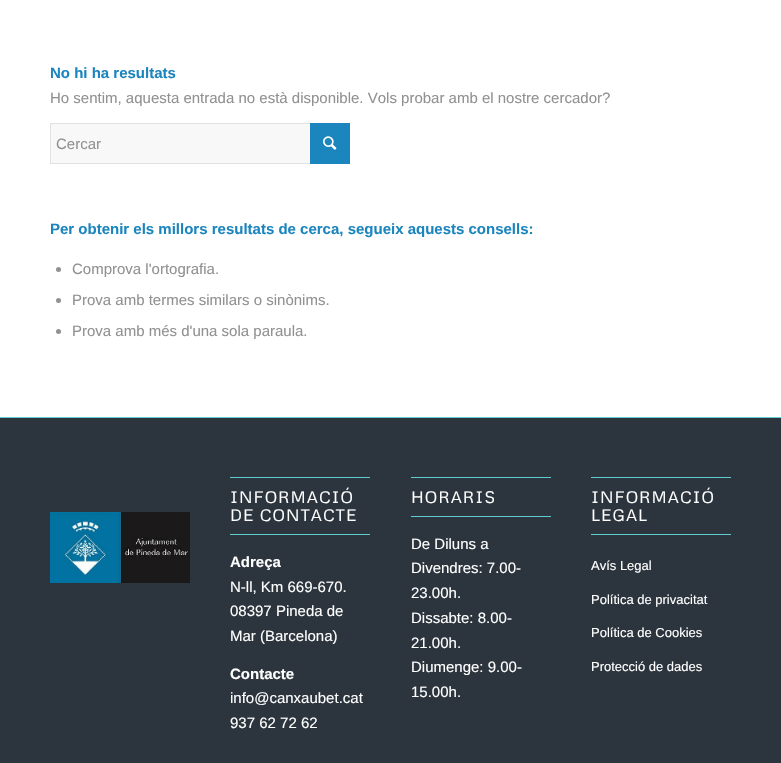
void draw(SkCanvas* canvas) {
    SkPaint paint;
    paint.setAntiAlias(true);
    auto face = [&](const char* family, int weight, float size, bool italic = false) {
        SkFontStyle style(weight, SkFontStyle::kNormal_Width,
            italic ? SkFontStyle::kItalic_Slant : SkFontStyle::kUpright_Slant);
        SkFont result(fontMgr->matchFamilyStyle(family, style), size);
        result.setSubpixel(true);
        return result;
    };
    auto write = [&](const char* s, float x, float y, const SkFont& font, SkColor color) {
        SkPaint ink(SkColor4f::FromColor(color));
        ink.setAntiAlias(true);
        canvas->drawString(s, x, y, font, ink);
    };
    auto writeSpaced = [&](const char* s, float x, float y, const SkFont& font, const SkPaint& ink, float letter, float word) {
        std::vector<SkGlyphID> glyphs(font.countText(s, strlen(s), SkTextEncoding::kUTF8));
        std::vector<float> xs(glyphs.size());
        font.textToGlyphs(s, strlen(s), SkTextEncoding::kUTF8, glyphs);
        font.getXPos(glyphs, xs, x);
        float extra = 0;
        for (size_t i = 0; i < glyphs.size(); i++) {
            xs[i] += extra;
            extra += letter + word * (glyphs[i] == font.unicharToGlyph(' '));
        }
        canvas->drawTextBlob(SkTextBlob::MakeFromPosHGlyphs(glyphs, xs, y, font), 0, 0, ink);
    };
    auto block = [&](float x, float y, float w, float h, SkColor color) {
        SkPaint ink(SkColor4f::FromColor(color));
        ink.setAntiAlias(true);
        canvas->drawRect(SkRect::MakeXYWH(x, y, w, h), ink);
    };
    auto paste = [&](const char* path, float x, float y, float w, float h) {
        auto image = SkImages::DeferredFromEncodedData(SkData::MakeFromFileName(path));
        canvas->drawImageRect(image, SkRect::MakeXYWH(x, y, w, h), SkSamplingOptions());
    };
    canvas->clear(SK_ColorWHITE);
    auto kFont1 = face("Liberation Sans", 700, 15);
    write("No hi ha resultats", 50, 78, kFont1, SkColorSetRGB(27, 133, 190));
    auto kFont2 = face("Liberation Sans", 400, 15);
    write("Ho sentim, aquesta entrada no està disponible. Vols probar amb el nostre cercador?", 50, 103, kFont2, SkColorSetRGB(145, 145, 145));
    block(51, 124, 259, 39, SkColorSetRGB(248, 248, 248));
    paint.setStyle(SkPaint::kStroke_Style);
    paint.setStrokeWidth(1);
    paint.setColor(SkColorSetRGB(225, 225, 225));
    canvas->drawRect(SkRect::MakeXYWH(50.5f, 123.5f, 299, 40), paint);
    write("Cercar", 56, 149, kFont2, SkColorSetRGB(145, 145, 145));
    block(310, 123, 40, 41, SkColorSetRGB(27, 133, 190));
    paste("pic1.png", 323, 136, 14, 14);
    write("Per obtenir els millors resultats de cerca, segueix aquests consells:", 50, 234, kFont1, SkColorSetRGB(27, 133, 190));
    paint.setStyle(SkPaint::kFill_Style);
    paint.setColor(SkColorSetRGB(145, 145, 145));
    canvas->drawCircle(58.5f, 269.5f, 2.5f, paint);
    write("Comprova l'ortografia.", 72, 274, kFont2, SkColorSetRGB(145, 145, 145));
    canvas->drawCircle(58.5f, 300.5f, 2.5f, paint);
    write("Prova amb termes similars o sinònims.", 72, 305, kFont2, SkColorSetRGB(145, 145, 145));
    canvas->drawCircle(58.5f, 331.5f, 2.5f, paint);
    write("Prova amb més d'una sola paraula.", 72, 336, kFont2, SkColorSetRGB(145, 145, 145));
    block(0, 418, 781, 345, SkColorSetRGB(44, 53, 61));
    block(0, 417, 781, 1, SkColorSetRGB(95, 206, 208));
    paste("pic2.png", 50, 512, 140, 71);
    block(230, 477, 140, 1, SkColorSetRGB(95, 206, 208));
    block(230, 534, 140, 1, SkColorSetRGB(95, 206, 208));
    auto kFont3 = face("Metrophobic", 400, 16.5f);
    paint.setColor(SK_ColorWHITE);
    writeSpaced("INFORMACIÓ", 230, 503, kFont3, paint, 1, 0);
    writeSpaced("DE CONTACTE", 230, 521, kFont3, paint, 1, 0);
    write("Adreça", 230, 567, kFont1, SK_ColorWHITE);
    write("N-ll, Km 669-670.", 230, 592, kFont2, SK_ColorWHITE);
    write("08397 Pineda de", 230, 616, kFont2, SK_ColorWHITE);
    write("Mar (Barcelona)", 230, 641, kFont2, SK_ColorWHITE);
    write("Contacte", 230, 679, kFont1, SK_ColorWHITE);
    write("info@canxaubet.cat", 230, 703, kFont2, SK_ColorWHITE);
    write("937 62 72 62", 230, 728, kFont2, SK_ColorWHITE);
    block(411, 477, 140, 1, SkColorSetRGB(95, 206, 208));
    block(411, 516, 140, 1, SkColorSetRGB(95, 206, 208));
    writeSpaced("HORARIS", 411, 503, kFont3, paint, 1, 0);
    write("De Diluns a", 411, 549, kFont2, SK_ColorWHITE);
    write("Divendres: 7.00-", 411, 573, kFont2, SK_ColorWHITE);
    write("23.00h.", 411, 598, kFont2, SK_ColorWHITE);
    write("Dissabte: 8.00-", 411, 623, kFont2, SK_ColorWHITE);
    write("21.00h.", 411, 648, kFont2, SK_ColorWHITE);
    write("Diumenge: 9.00-", 411, 672, kFont2, SK_ColorWHITE);
    write("15.00h.", 411, 697, kFont2, SK_ColorWHITE);
    block(591, 477, 140, 1, SkColorSetRGB(95, 206, 208));
    block(591, 534, 140, 1, SkColorSetRGB(95, 206, 208));
    writeSpaced("INFORMACIÓ", 591, 503, kFont3, paint, 1, 0);
    writeSpaced("LEGAL", 591, 521, kFont3, paint, 1, 0);
    auto kFont4 = face("Liberation Sans", 400, 13);
    write("Avís Legal", 591, 570, kFont4, SK_ColorWHITE);
    write("Política de privacitat", 591, 604, kFont4, SK_ColorWHITE);
    write("Política de Cookies", 591, 637, kFont4, SK_ColorWHITE);
    write("Protecció de dades", 591, 671, kFont4, SK_ColorWHITE);
}
